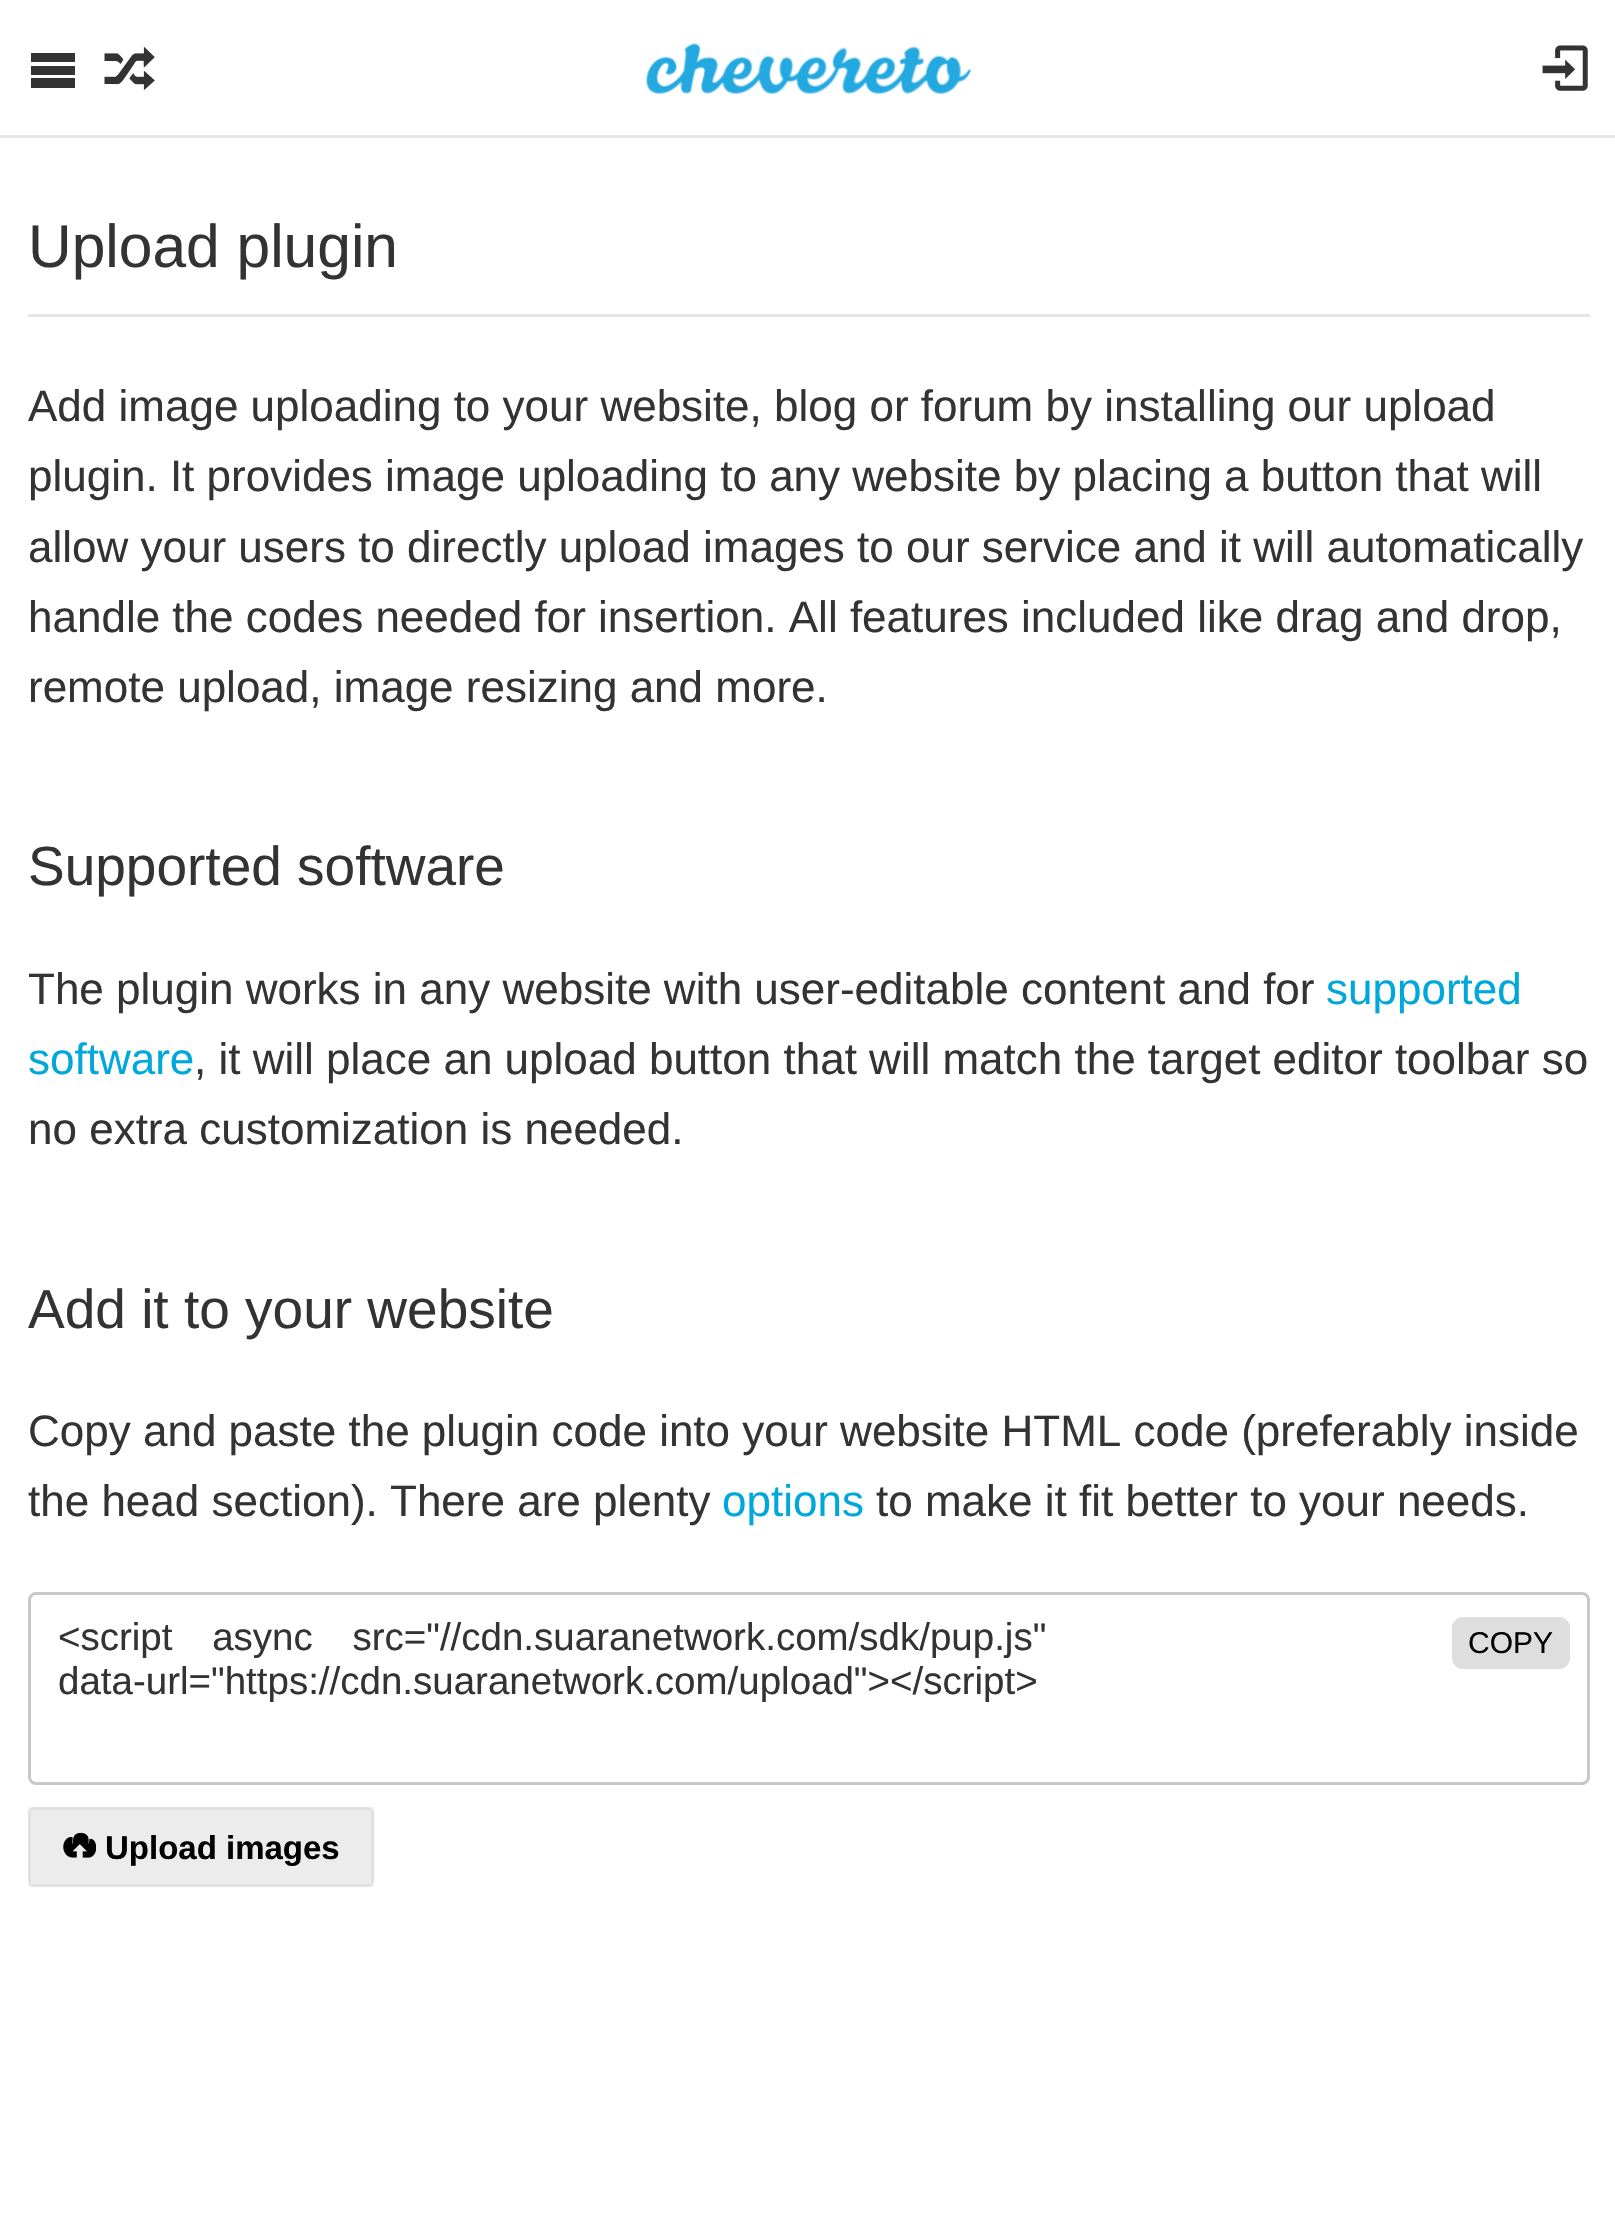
void draw(SkCanvas* canvas) {
    SkPaint paint;
    paint.setAntiAlias(true);
    auto face = [&](const char* family, int weight, float size, bool italic = false) {
        SkFontStyle style(weight, SkFontStyle::kNormal_Width,
            italic ? SkFontStyle::kItalic_Slant : SkFontStyle::kUpright_Slant);
        SkFont result(fontMgr->matchFamilyStyle(family, style), size);
        result.setSubpixel(true);
        return result;
    };
    auto write = [&](const char* s, float x, float y, const SkFont& font, SkColor color) {
        SkPaint ink(SkColor4f::FromColor(color));
        ink.setAntiAlias(true);
        canvas->drawString(s, x, y, font, ink);
    };
    auto writeSpaced = [&](const char* s, float x, float y, const SkFont& font, const SkPaint& ink, float letter, float word) {
        std::vector<SkGlyphID> glyphs(font.countText(s, strlen(s), SkTextEncoding::kUTF8));
        std::vector<float> xs(glyphs.size());
        font.textToGlyphs(s, strlen(s), SkTextEncoding::kUTF8, glyphs);
        font.getXPos(glyphs, xs, x);
        float extra = 0;
        for (size_t i = 0; i < glyphs.size(); i++) {
            xs[i] += extra;
            extra += letter + word * (glyphs[i] == font.unicharToGlyph(' '));
        }
        canvas->drawTextBlob(SkTextBlob::MakeFromPosHGlyphs(glyphs, xs, y, font), 0, 0, ink);
    };
    auto block = [&](float x, float y, float w, float h, SkColor color) {
        SkPaint ink(SkColor4f::FromColor(color));
        ink.setAntiAlias(true);
        canvas->drawRect(SkRect::MakeXYWH(x, y, w, h), ink);
    };
    auto card = [&](float x, float y, float w, float h, float radius, SkColor color) {
        SkPaint ink(SkColor4f::FromColor(color));
        ink.setAntiAlias(true);
        canvas->drawRoundRect(SkRect::MakeXYWH(x, y, w, h), radius, radius, ink);
    };
    auto paste = [&](const char* path, float x, float y, float w, float h) {
        auto image = SkImages::DeferredFromEncodedData(SkData::MakeFromFileName(path));
        canvas->drawImageRect(image, SkRect::MakeXYWH(x, y, w, h), SkSamplingOptions());
    };
    canvas->clear(SK_ColorWHITE);
    block(0, 135, 1615, 3, SkColorSetRGB(230, 230, 230));
    paint.setColor(SkColorSetRGB(51, 51, 51));
    canvas->drawPath(SkPathBuilder().moveTo(31, 53).lineTo(75, 53).lineTo(75, 62).lineTo(31, 62).close().moveTo(31, 66).lineTo(75, 66).lineTo(75, 75).lineTo(31, 75).close().moveTo(31, 78).lineTo(75, 78).lineTo(75, 88).lineTo(31, 88).close().detach(), paint);
    paste("pic1.png", 104, 46, 51, 45);
    paste("pic2.png", 646, 43, 325, 51);
    paste("pic3.png", 1542, 45, 46, 46);
    block(28, 314, 1562, 3, SkColorSetRGB(229, 229, 229));
    auto kFont1 = face("Liberation Sans", 400, 60.5f);
    write("Upload plugin", 28, 267, kFont1, SkColorSetRGB(51, 51, 51));
    auto kFont2 = face("Liberation Sans", 400, 44);
    write("Add image uploading to your website, blog or forum by installing our upload", 28, 421, kFont2, SkColorSetRGB(51, 51, 51));
    write("plugin. It provides image uploading to any website by placing a button that will", 28, 491, kFont2, SkColorSetRGB(51, 51, 51));
    write("allow your users to directly upload images to our service and it will automatically", 28, 562, kFont2, SkColorSetRGB(51, 51, 51));
    write("handle the codes needed for insertion. All features included like drag and drop,", 28, 632, kFont2, SkColorSetRGB(51, 51, 51));
    write("remote upload, image resizing and more.", 28, 702, kFont2, SkColorSetRGB(51, 51, 51));
    auto kFont3 = face("Liberation Sans", 400, 55);
    write("Supported software", 28, 885, kFont3, SkColorSetRGB(51, 51, 51));
    write("The plugin works in any website with user-editable content and for", 28, 1004, kFont2, SkColorSetRGB(51, 51, 51));
    write("supported", 1326, 1004, kFont2, SkColorSetRGB(0, 167, 218));
    write("software", 28, 1074, kFont2, SkColorSetRGB(0, 167, 218));
    write(", it will place an upload button that will match the target editor toolbar so", 194, 1074, kFont2, SkColorSetRGB(51, 51, 51));
    write("no extra customization is needed.", 28, 1144, kFont2, SkColorSetRGB(51, 51, 51));
    write("Add it to your website", 28, 1328, kFont3, SkColorSetRGB(51, 51, 51));
    write("Copy and paste the plugin code into your website HTML code (preferably inside", 28, 1446, kFont2, SkColorSetRGB(51, 51, 51));
    write("the head section). There are plenty", 28, 1516, kFont2, SkColorSetRGB(51, 51, 51));
    write("options", 722, 1516, kFont2, SkColorSetRGB(0, 167, 218));
    write("to make it fit better to your needs.", 876, 1516, kFont2, SkColorSetRGB(51, 51, 51));
    paint.setStyle(SkPaint::kStroke_Style);
    paint.setStrokeWidth(3);
    paint.setColor(SkColorSetRGB(198, 200, 202));
    canvas->drawRoundRect(SkRect::MakeXYWH(29.5f, 1593.5f, 1559, 190), 6.5f, 6.5f, paint);
    auto kFont4 = face("Liberation Sans", 400, 38.5f);
    paint.setStyle(SkPaint::kFill_Style);
    paint.setColor(SkColorSetRGB(51, 51, 51));
    writeSpaced("<script async src=\"//cdn.suaranetwork.com/sdk/pup.js\"", 58, 1650, kFont4, paint, 0, 29);
    write("data-url=\"https://cdn.suaranetwork.com/upload\"></script>", 58, 1694, kFont4, SkColorSetRGB(51, 51, 51));
    card(1452, 1617, 118, 52, 11, SkColorSetRGB(222, 222, 222));
    auto kFont5 = face("Liberation Sans", 400, 30);
    write("COPY", 1468, 1653, kFont5, SK_ColorBLACK);
    card(28, 1807, 346, 80, 7, SkColorSetRGB(236, 236, 236));
    paint.setStyle(SkPaint::kStroke_Style);
    paint.setColor(SkColorSetARGB(13, 0, 0, 0));
    canvas->drawRect(SkRect::MakeXYWH(29.5f, 1808.5f, 343, 77), paint);
    paste("pic4.png", 63, 1832, 33, 26);
    auto kFont6 = face("Liberation Sans", 700, 33);
    write("Upload images", 105, 1859, kFont6, SK_ColorBLACK);
}
